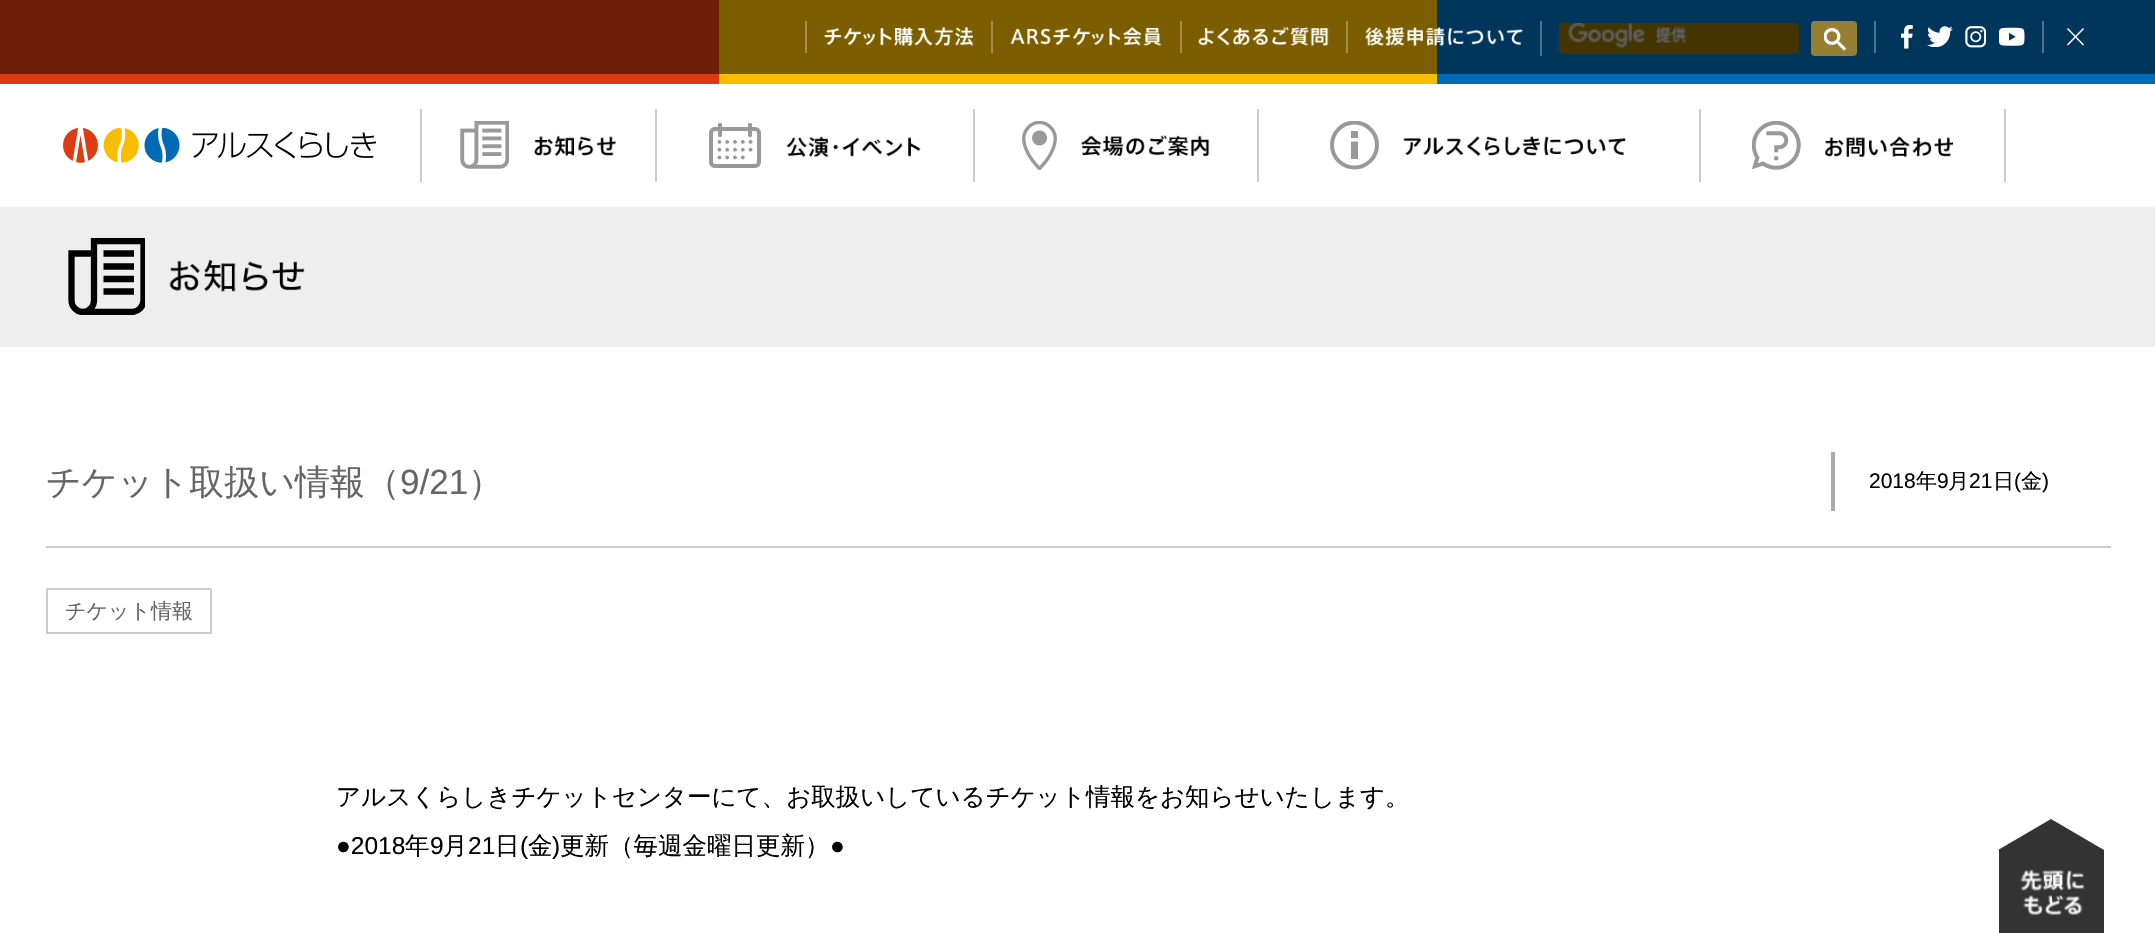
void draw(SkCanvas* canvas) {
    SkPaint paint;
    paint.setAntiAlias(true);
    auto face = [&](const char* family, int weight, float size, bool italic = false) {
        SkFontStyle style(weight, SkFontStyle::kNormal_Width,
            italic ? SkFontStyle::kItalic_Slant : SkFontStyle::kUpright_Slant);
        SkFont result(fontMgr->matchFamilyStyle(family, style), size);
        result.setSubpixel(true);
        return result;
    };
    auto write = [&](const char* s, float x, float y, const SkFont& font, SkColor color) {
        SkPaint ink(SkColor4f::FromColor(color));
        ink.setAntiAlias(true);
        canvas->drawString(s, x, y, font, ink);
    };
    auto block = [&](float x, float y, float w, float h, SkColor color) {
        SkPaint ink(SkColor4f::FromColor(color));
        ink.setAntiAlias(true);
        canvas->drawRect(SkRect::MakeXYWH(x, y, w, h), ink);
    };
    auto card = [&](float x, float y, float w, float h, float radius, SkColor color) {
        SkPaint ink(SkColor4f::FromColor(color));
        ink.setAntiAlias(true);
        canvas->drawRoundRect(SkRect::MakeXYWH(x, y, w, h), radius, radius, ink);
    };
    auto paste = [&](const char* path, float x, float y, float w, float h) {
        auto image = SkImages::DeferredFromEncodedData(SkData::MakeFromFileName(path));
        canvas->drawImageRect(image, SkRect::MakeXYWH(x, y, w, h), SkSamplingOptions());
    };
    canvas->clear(SK_ColorWHITE);
    paint.setStyle(SkPaint::kStroke_Style);
    paint.setStrokeWidth(140);
    paint.setColor(SkColorSetRGB(238, 238, 238));
    canvas->drawRect(SkRect::MakeXYWH(-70, 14, 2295, 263), paint);
    paste("pic1.png", 63, 128, 313, 35);
    block(420, 109, 2, 73, SkColorSetRGB(204, 204, 204));
    paste("pic2.png", 460, 121, 49, 48);
    paste("pic3.png", 534, 135, 82, 21);
    block(655, 109, 2, 73, SkColorSetRGB(204, 204, 204));
    paste("pic4.png", 709, 123, 52, 45);
    paste("pic5.png", 786, 136, 135, 21);
    block(973, 109, 2, 73, SkColorSetRGB(204, 204, 204));
    paste("pic6.png", 1022, 121, 35, 49);
    paste("pic7.png", 1081, 135, 129, 21);
    block(1257, 109, 2, 73, SkColorSetRGB(204, 204, 204));
    canvas->save();
    canvas->clipRect(SkRect::MakeXYWH(1330, 121, 49, 49));
    paint.setStrokeWidth(4);
    paint.setColor(SkColorSetRGB(153, 153, 153));
    canvas->drawCircle(1354.5f, 145, 22.5f, paint);
    canvas->restore();
    paint.setStyle(SkPaint::kFill_Style);
    canvas->drawPath(SkPathBuilder().moveTo(1351, 131).lineTo(1358, 131).lineTo(1358, 138).lineTo(1351, 138).close().moveTo(1351, 141.5f).lineTo(1358, 141.5f).lineTo(1358, 159).lineTo(1351, 159).close().detach(), paint);
    paste("pic8.png", 1403, 136, 223, 20);
    block(2004, 109, 2, 73, SkColorSetRGB(204, 204, 204));
    block(1699, 109, 2, 73, SkColorSetRGB(204, 204, 204));
    paste("pic9.png", 1752, 121, 49, 49);
    paste("pic10.png", 1825, 136, 128, 21);
    block(0, 0, 719, 84, SkColorSetRGB(220, 58, 18));
    block(719, 0, 718, 84, SkColorSetRGB(248, 188, 0));
    block(1437, 0, 718, 84, SkColorSetRGB(0, 106, 184));
    block(0, 0, 2155, 74, SkColorSetARGB(128, 0, 0, 0));
    block(805, 21, 2, 32, SkColorSetRGB(163, 142, 77));
    paste("pic11.png", 824, 27, 149, 19);
    block(991, 21, 2, 32, SkColorSetRGB(163, 142, 77));
    paste("pic12.png", 1010, 27, 152, 19);
    block(1180, 21, 2, 32, SkColorSetRGB(163, 142, 77));
    paste("pic13.png", 1198, 26, 131, 20);
    block(1346, 21, 2, 32, SkColorSetRGB(163, 142, 77));
    paste("pic14.png", 1365, 27, 158, 19);
    block(1540, 21, 2, 35, SkColorSetRGB(77, 114, 141));
    card(1559, 23, 240, 31, 4, SkColorSetRGB(68, 52, 0));
    paste("pic15.png", 1568, 22, 119, 26);
    paint.setColor(SkColorSetRGB(150, 126, 51));
    canvas->drawRoundRect(SkRect::MakeXYWH(1812, 22, 44, 33), 3, 3, paint);
    paint.setStyle(SkPaint::kStroke_Style);
    paint.setStrokeWidth(2);
    canvas->drawRoundRect(SkRect::MakeXYWH(1812, 22, 44, 33), 3, 3, paint);
    paste("pic16.png", 1824, 28, 22, 23);
    block(2042, 21, 2, 32, SkColorSetRGB(77, 114, 141));
    block(1874, 21, 2, 32, SkColorSetRGB(77, 114, 141));
    paste("pic17.png", 1901, 25, 12, 24);
    paste("pic18.png", 1927, 26, 26, 21);
    paste("pic19.png", 1965, 26, 21, 22);
    paste("pic20.png", 1999, 27, 26, 19);
    paint.setStrokeWidth(1.5f);
    paint.setColor(SK_ColorWHITE);
    canvas->drawPath(SkPathBuilder().moveTo(2067.5f, 28.5f).lineTo(2083.5f, 45).moveTo(2083.5f, 28.5f).lineTo(2067.5f, 45).detach(), paint);
    paste("pic21.png", 169, 259, 136, 33);
    canvas->save();
    canvas->clipRect(SkRect::MakeXYWH(68, 238, 77, 77));
    paint.setStrokeWidth(6.3f);
    paint.setColor(SK_ColorBLACK);
    canvas->drawPath(SkPathBuilder().moveTo(83, 312).cubicTo(76.5f, 312, 71.5f, 306.5f, 71.5f, 300.5f).lineTo(71.5f, 253.5f).lineTo(94, 253.5f).lineTo(94, 300.5f).cubicTo(94, 306.5f, 89, 312, 83, 312).close().moveTo(83, 312).lineTo(132, 312).cubicTo(138.5f, 312, 143.5f, 306.5f, 143.5f, 300).lineTo(143.5f, 241).lineTo(94, 241).lineTo(94, 250.5f).moveTo(103.5f, 253.5f).lineTo(134, 253.5f).moveTo(103.5f, 291.5f).lineTo(134, 291.5f).moveTo(103.5f, 279).lineTo(134, 279).moveTo(103.5f, 266.5f).lineTo(134, 266.5f).detach(), paint);
    canvas->restore();
    block(46, 546, 2065, 2, SkColorSetRGB(204, 204, 204));
    auto kFont1 = face("WenQuanYi Zen Hei", 500, 35);
    write("チケット取扱い情報（", 46, 494, kFont1, SkColorSetRGB(102, 102, 102));
    auto kFont2 = face("Liberation Sans", 400, 35);
    write("9/21", 400, 494, kFont2, SkColorSetRGB(102, 102, 102));
    write("）", 468, 494, kFont1, SkColorSetRGB(102, 102, 102));
    block(1831, 452, 4, 59, SkColorSetRGB(170, 170, 170));
    auto kFont3 = face("Liberation Sans", 400, 21);
    write("2018", 1869, 488, kFont3, SK_ColorBLACK);
    auto kFont4 = face("WenQuanYi Zen Hei", 500, 21);
    write("年", 1916, 488, kFont4, SK_ColorBLACK);
    write("9", 1937, 488, kFont3, SK_ColorBLACK);
    write("月", 1948, 488, kFont4, SK_ColorBLACK);
    write("21", 1969, 488, kFont3, SK_ColorBLACK);
    write("日", 1993, 488, kFont4, SK_ColorBLACK);
    write("(", 2014, 488, kFont3, SK_ColorBLACK);
    write("金", 2021, 488, kFont4, SK_ColorBLACK);
    write(")", 2042, 488, kFont3, SK_ColorBLACK);
    paint.setStrokeWidth(2);
    paint.setColor(SkColorSetRGB(204, 204, 204));
    canvas->drawRect(SkRect::MakeXYWH(47, 589, 164, 44), paint);
    write("チケット情報", 65, 618, kFont4, SkColorSetRGB(102, 102, 102));
    auto kFont5 = face("WenQuanYi Zen Hei", 500, 24.5f);
    write("アルスくらしきチケットセンターにて、お取扱いしているチケット情報をお知らせいたします。", 336, 805, kFont5, SK_ColorBLACK);
    auto kFont6 = face("Liberation Sans", 400, 24.5f);
    write("●2018", 336, 854, kFont6, SK_ColorBLACK);
    write("年", 405, 854, kFont5, SK_ColorBLACK);
    write("9", 430, 854, kFont6, SK_ColorBLACK);
    write("月", 443, 854, kFont5, SK_ColorBLACK);
    write("21", 468, 854, kFont6, SK_ColorBLACK);
    write("日", 495, 854, kFont5, SK_ColorBLACK);
    write("(", 520, 854, kFont6, SK_ColorBLACK);
    write("金", 528, 854, kFont5, SK_ColorBLACK);
    write(")", 552, 854, kFont6, SK_ColorBLACK);
    write("更新（毎週金曜日更新）", 560, 854, kFont5, SK_ColorBLACK);
    write("●", 830, 854, kFont6, SK_ColorBLACK);
    canvas->save();
    canvas->clipRect(SkRect::MakeXYWH(1999, 819, 105, 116));
    paint.setStyle(SkPaint::kFill_Style);
    paint.setColor(SkColorSetRGB(51, 51, 51));
    canvas->drawPath(SkPathBuilder(SkPathFillType::kEvenOdd).moveTo(1946, 796).lineTo(1946, 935).lineTo(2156, 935).lineTo(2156, 796).close().moveTo(1998, 817).lineTo(1998, 850).lineTo(2104, 850).lineTo(2104, 817).close().detach(), paint);
    canvas->restore();
    canvas->drawPath(SkPathBuilder().moveTo(2104, 850).lineTo(1998, 850).lineTo(2051, 819).close().detach(), paint);
    paste("pic22.png", 2020, 869, 65, 46);
}
